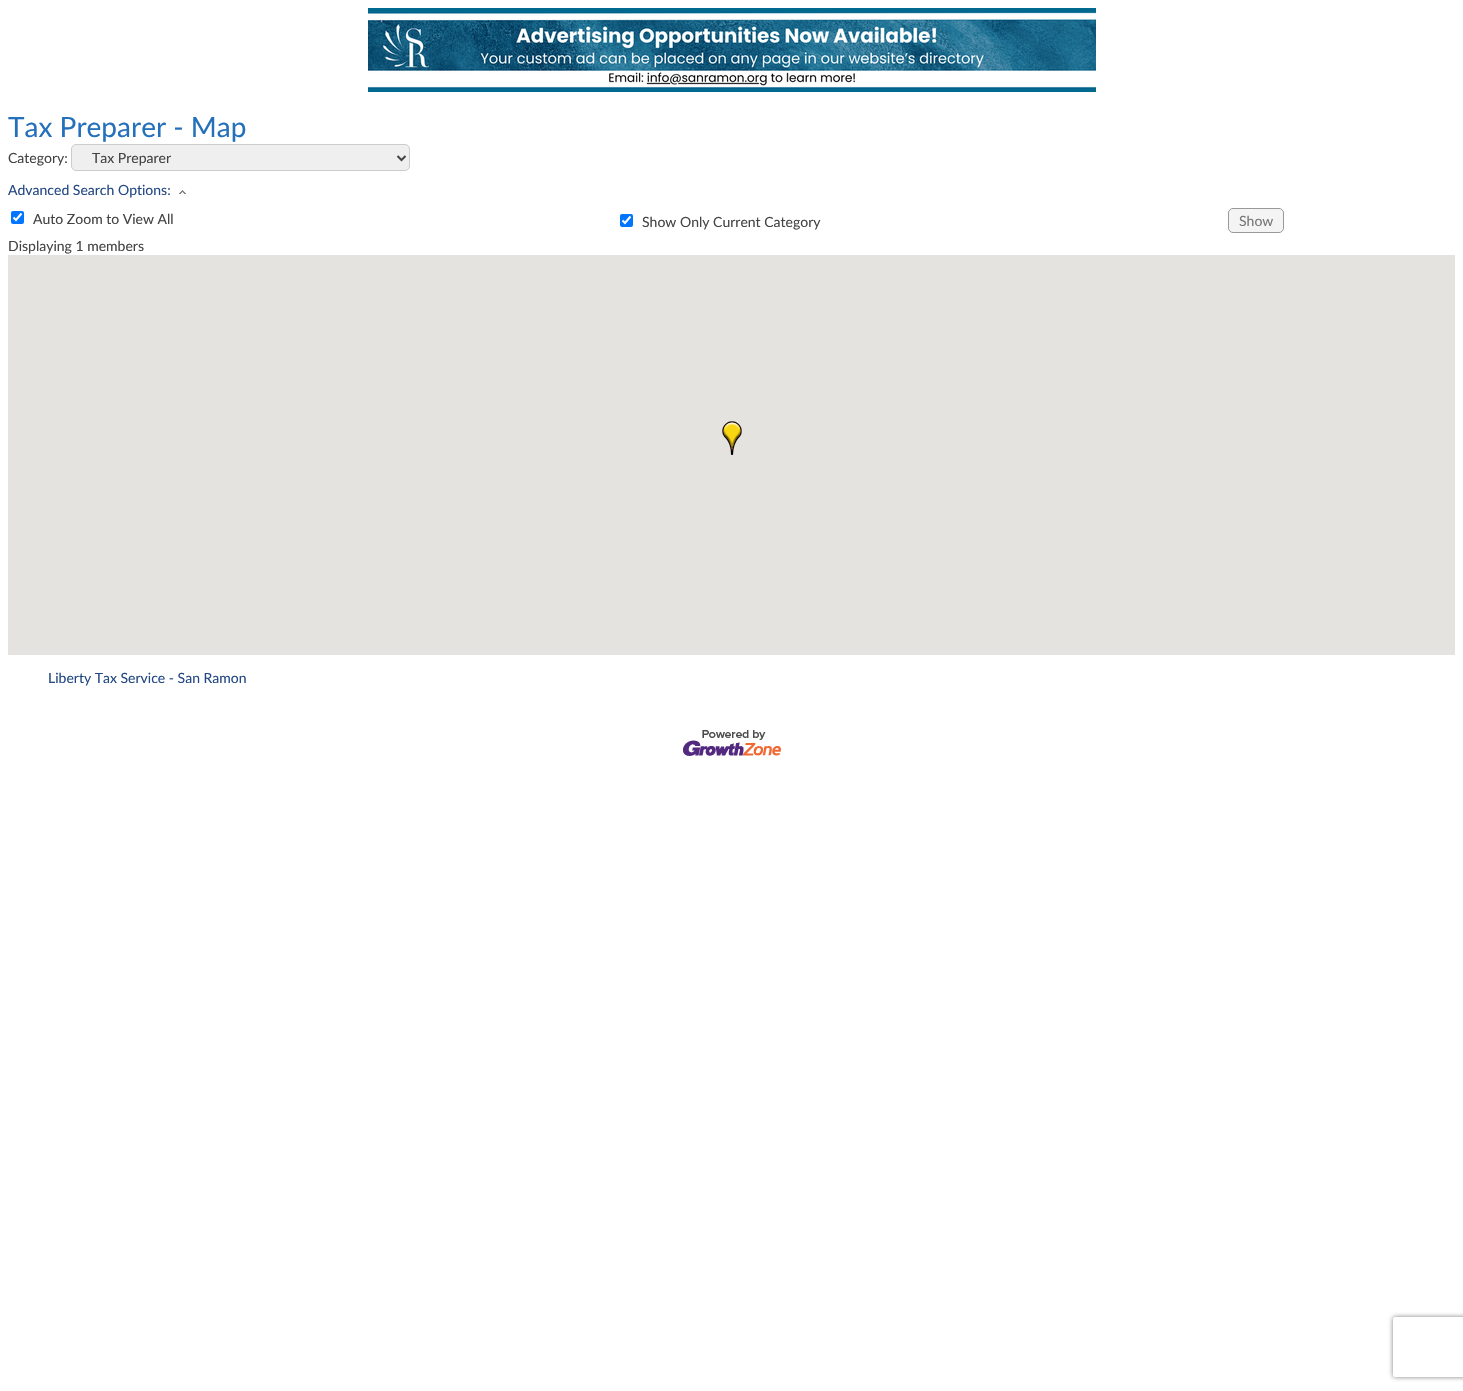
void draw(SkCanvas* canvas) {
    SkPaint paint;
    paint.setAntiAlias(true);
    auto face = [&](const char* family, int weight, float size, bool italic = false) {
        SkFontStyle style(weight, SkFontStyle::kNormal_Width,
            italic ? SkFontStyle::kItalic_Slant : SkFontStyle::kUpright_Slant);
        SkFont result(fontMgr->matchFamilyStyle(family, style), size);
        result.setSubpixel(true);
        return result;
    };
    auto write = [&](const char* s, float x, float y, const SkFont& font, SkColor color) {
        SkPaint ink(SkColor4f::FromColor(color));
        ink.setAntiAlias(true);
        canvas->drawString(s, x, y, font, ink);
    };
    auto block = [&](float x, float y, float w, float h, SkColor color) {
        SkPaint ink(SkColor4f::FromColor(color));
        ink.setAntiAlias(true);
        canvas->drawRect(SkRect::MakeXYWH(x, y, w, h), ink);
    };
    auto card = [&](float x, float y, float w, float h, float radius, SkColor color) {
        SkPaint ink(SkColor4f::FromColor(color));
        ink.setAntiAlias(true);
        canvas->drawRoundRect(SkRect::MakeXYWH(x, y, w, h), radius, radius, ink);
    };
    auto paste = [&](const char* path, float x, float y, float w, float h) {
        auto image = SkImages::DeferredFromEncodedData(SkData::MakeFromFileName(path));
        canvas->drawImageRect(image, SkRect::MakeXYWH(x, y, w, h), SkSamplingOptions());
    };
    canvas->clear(SK_ColorWHITE);
    paste("pic1.png", 368, 8, 728, 84);
    auto kFont1 = face("Lato", 400, 28);
    write("Tax Preparer - Map", 8, 137, kFont1, SkColorSetRGB(37, 112, 187));
    auto kFont2 = face("Lato", 400, 14);
    write("Category:", 8, 163, kFont2, SkColorSetRGB(68, 68, 68));
    paint.setColor(SkColorSetRGB(239, 239, 239));
    canvas->drawRoundRect(SkRect::MakeXYWH(71.5f, 144.5f, 338, 26), 4.5f, 4.5f, paint);
    paint.setStyle(SkPaint::kStroke_Style);
    paint.setStrokeWidth(1);
    paint.setColor(SkColorSetRGB(204, 204, 204));
    canvas->drawRoundRect(SkRect::MakeXYWH(71.5f, 144.5f, 338, 26), 4.5f, 4.5f, paint);
    paint.setStrokeWidth(2);
    paint.setColor(SkColorSetRGB(68, 68, 68));
    canvas->drawPath(SkPathBuilder().moveTo(397.5f, 156).lineTo(401.5f, 160).lineTo(405.5f, 156).detach(), paint);
    write("Tax Preparer", 92, 163, kFont2, SkColorSetRGB(68, 68, 68));
    write("Advanced Search Options:", 8, 195, kFont2, SkColorSetRGB(34, 72, 132));
    paste("pic2.png", 179, 190, 7, 4);
    card(11, 211, 13, 13, 2, SkColorSetRGB(0, 117, 255));
    paint.setStrokeWidth(2.1f);
    paint.setColor(SK_ColorWHITE);
    canvas->drawPath(SkPathBuilder().moveTo(13.5f, 217.5f).lineTo(16, 220).lineTo(21.5f, 213.5f).detach(), paint);
    write("Auto Zoom to View All", 33, 224, kFont2, SkColorSetRGB(68, 68, 68));
    card(620, 214, 13, 13, 2, SkColorSetRGB(0, 117, 255));
    canvas->drawPath(SkPathBuilder().moveTo(622.5f, 220.5f).lineTo(625, 223).lineTo(630.5f, 216.5f).detach(), paint);
    write("Show Only Current Category", 642, 227, kFont2, SkColorSetRGB(68, 68, 68));
    paint.setStyle(SkPaint::kFill_Style);
    paint.setColor(SkColorSetRGB(244, 244, 244));
    canvas->drawRoundRect(SkRect::MakeXYWH(1228.5f, 208.5f, 55, 24), 4.5f, 4.5f, paint);
    paint.setStyle(SkPaint::kStroke_Style);
    paint.setStrokeWidth(1);
    paint.setColor(SkColorSetRGB(153, 153, 153));
    canvas->drawRoundRect(SkRect::MakeXYWH(1228.5f, 208.5f, 55, 24), 4.5f, 4.5f, paint);
    write("Show", 1239, 226, kFont2, SkColorSetRGB(119, 119, 119));
    write("Displaying 1 members", 8, 251, kFont2, SkColorSetRGB(68, 68, 68));
    block(8, 255, 1447, 400, SkColorSetRGB(229, 227, 223));
    paste("pic3.png", 722, 421, 20, 34);
    write("Liberty Tax Service - San Ramon", 48, 683, kFont2, SkColorSetRGB(34, 72, 132));
    paste("pic4.png", 683, 730, 98, 26);
    canvas->save();
    canvas->clipPath(SkPathBuilder(SkPathFillType::kEvenOdd).moveTo(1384, 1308).lineTo(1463, 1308).lineTo(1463, 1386).lineTo(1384, 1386).close().moveTo(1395, 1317).lineTo(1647, 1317).cubicTo(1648, 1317, 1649, 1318, 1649, 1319).lineTo(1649, 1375).cubicTo(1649, 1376, 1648, 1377, 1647, 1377).lineTo(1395, 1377).cubicTo(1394, 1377, 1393, 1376, 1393, 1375).lineTo(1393, 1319).cubicTo(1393, 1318, 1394, 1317, 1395, 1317).close().detach(), true);
    paint.setStyle(SkPaint::kFill_Style);
    paint.setColor(SkColorSetRGB(128, 128, 128));
    paint.setMaskFilter(SkMaskFilter::MakeBlur(kNormal_SkBlurStyle, 2.5f));
    canvas->drawRoundRect(SkRect::MakeXYWH(1393, 1317, 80, 60), 2, 2, paint);
    paint.setMaskFilter(nullptr);
    canvas->restore();
}
